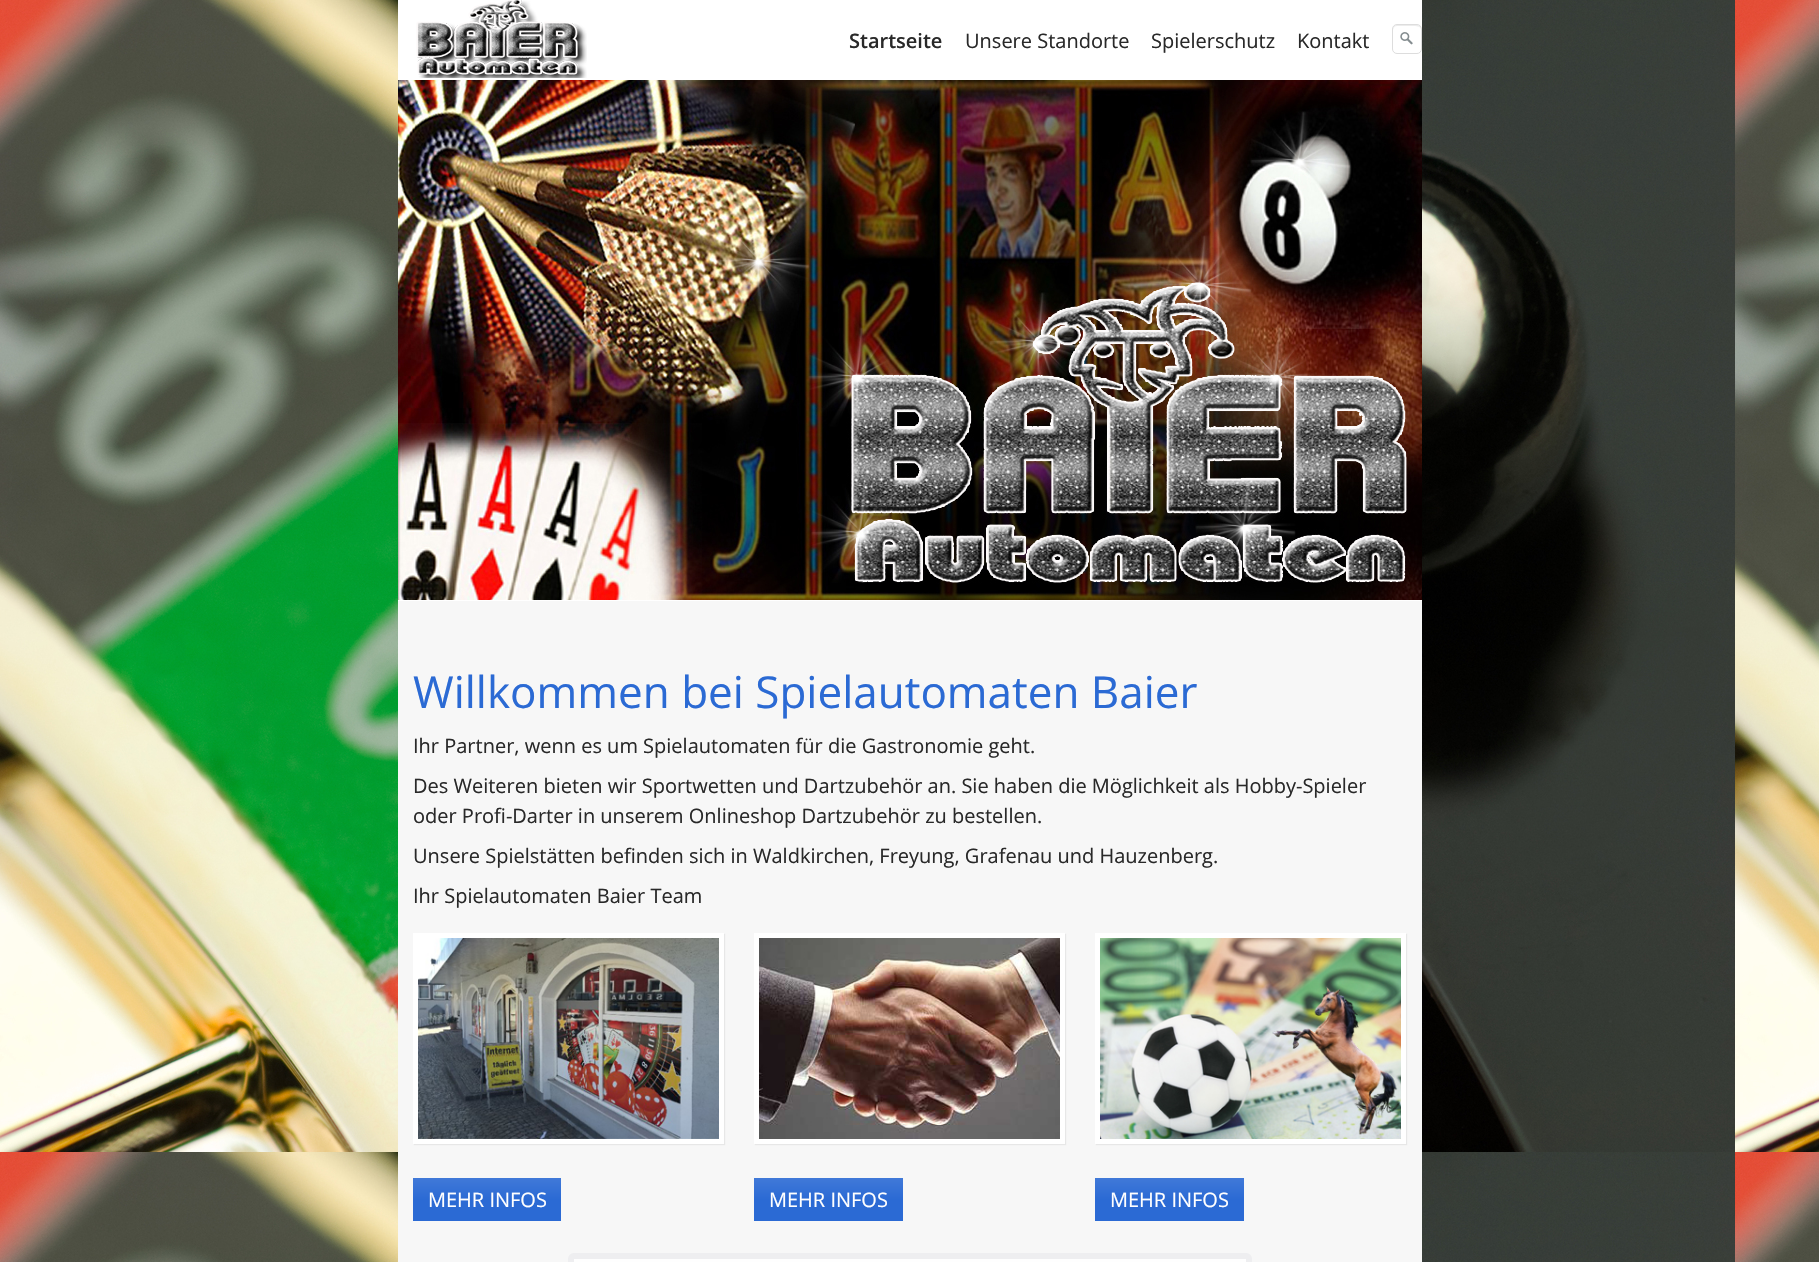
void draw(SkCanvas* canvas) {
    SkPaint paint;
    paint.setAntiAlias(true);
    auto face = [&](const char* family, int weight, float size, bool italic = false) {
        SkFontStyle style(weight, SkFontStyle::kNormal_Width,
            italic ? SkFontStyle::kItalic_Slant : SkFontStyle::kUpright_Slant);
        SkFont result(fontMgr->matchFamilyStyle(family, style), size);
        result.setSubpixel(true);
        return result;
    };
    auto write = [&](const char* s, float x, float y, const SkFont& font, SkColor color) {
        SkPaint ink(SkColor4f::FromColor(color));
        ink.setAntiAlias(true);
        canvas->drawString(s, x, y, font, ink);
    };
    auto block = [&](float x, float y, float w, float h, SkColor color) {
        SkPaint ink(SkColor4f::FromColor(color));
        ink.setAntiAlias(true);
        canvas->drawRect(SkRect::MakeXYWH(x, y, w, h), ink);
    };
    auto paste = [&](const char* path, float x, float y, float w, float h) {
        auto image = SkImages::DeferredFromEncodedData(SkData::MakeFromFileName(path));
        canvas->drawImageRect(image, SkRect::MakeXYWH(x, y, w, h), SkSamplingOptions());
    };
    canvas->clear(SK_ColorWHITE);
    paste("pic1.png", 0, 0, 1819, 1262);
    block(398, 601, 1024, 661, SkColorSetRGB(247, 247, 247));
    block(398, 0, 1024, 80, SK_ColorWHITE);
    paste("pic2.png", 416, 0, 171, 78);
    auto kFont1 = face("Open Sans", 600, 20);
    write("Startseite", 849, 48, kFont1, SkColorSetRGB(41, 41, 41));
    auto kFont2 = face("Open Sans", 400, 20);
    write("Unsere Standorte", 965, 48, kFont2, SkColorSetRGB(41, 41, 41));
    write("Spielerschutz", 1151, 48, kFont2, SkColorSetRGB(41, 41, 41));
    write("Kontakt", 1297, 48, kFont2, SkColorSetRGB(41, 41, 41));
    paint.setColor(SkColorSetRGB(236, 236, 236));
    canvas->drawPath(SkPathBuilder().moveTo(1397, 26).lineTo(1414, 26).cubicTo(1418.5f, 26, 1420.5f, 27, 1421, 29).cubicTo(1421, 26.5f, 1419, 25, 1417, 25).lineTo(1397, 25).cubicTo(1395, 25, 1393, 27, 1393, 29).lineTo(1393, 30).cubicTo(1393.5f, 28, 1394.5f, 26, 1397, 26).close().detach(), paint);
    paint.setStyle(SkPaint::kStroke_Style);
    paint.setStrokeWidth(1);
    paint.setColor(SkColorSetRGB(221, 221, 221));
    canvas->drawRoundRect(SkRect::MakeXYWH(1392.5f, 24.5f, 29, 29), 4.5f, 4.5f, paint);
    paste("pic3.png", 1400, 32, 13, 13);
    block(398, 600, 1024, 1, SK_ColorWHITE);
    paste("pic4.png", 398, 80, 1024, 520);
    auto kFont3 = face("Open Sans", 400, 44);
    write("Willkommen bei Spielautomaten Baier", 413, 708, kFont3, SkColorSetRGB(43, 106, 212));
    write("Ihr Partner, wenn es um Spielautomaten für die Gastronomie geht.", 413, 753, kFont2, SkColorSetRGB(41, 41, 41));
    write("Des Weiteren bieten wir Sportwetten und Dartzubehör an. Sie haben die Möglichkeit als Hobby-Spieler", 413, 793, kFont2, SkColorSetRGB(41, 41, 41));
    write("oder Profi-Darter in unserem Onlineshop Dartzubehör zu bestellen.", 413, 823, kFont2, SkColorSetRGB(41, 41, 41));
    write("Unsere Spielstätten befinden sich in Waldkirchen, Freyung, Grafenau und Hauzenberg.", 413, 863, kFont2, SkColorSetRGB(41, 41, 41));
    write("Ihr Spielautomaten Baier Team", 413, 903, kFont2, SkColorSetRGB(41, 41, 41));
    paint.setStyle(SkPaint::kFill_Style);
    paint.setColor(SkColorSetRGB(231, 231, 231));
    paint.setMaskFilter(SkMaskFilter::MakeBlur(kNormal_SkBlurStyle, 0.5f));
    canvas->drawRect(SkRect::MakeXYWH(414, 934, 311, 211), paint);
    paint.setMaskFilter(nullptr);
    paint.setStyle(SkPaint::kStroke_Style);
    paint.setStrokeWidth(5);
    paint.setColor(SK_ColorWHITE);
    canvas->drawRect(SkRect::MakeXYWH(415.5f, 935.5f, 306, 206), paint);
    paste("pic5.png", 418, 938, 301, 201);
    paint.setStyle(SkPaint::kFill_Style);
    paint.setColor(SkColorSetRGB(231, 231, 231));
    paint.setMaskFilter(SkMaskFilter::MakeBlur(kNormal_SkBlurStyle, 0.5f));
    canvas->drawRect(SkRect::MakeXYWH(755, 934, 311, 211), paint);
    paint.setMaskFilter(nullptr);
    paint.setStyle(SkPaint::kStroke_Style);
    paint.setColor(SK_ColorWHITE);
    canvas->drawRect(SkRect::MakeXYWH(756.5f, 935.5f, 306, 206), paint);
    paste("pic6.png", 759, 938, 301, 201);
    paint.setStyle(SkPaint::kFill_Style);
    paint.setColor(SkColorSetRGB(231, 231, 231));
    paint.setMaskFilter(SkMaskFilter::MakeBlur(kNormal_SkBlurStyle, 0.5f));
    canvas->drawRect(SkRect::MakeXYWH(1096, 934, 311, 211), paint);
    paint.setMaskFilter(nullptr);
    paint.setStyle(SkPaint::kStroke_Style);
    paint.setColor(SK_ColorWHITE);
    canvas->drawRect(SkRect::MakeXYWH(1097.5f, 935.5f, 306, 206), paint);
    paste("pic7.png", 1100, 938, 301, 201);
    paint.setStyle(SkPaint::kFill_Style);
    {
        const SkColor colors[] = {SkColorSetRGB(64, 121, 216), SkColorSetRGB(43, 106, 212)};
        const float stops[] = {0, 0.5f};
        const SkPoint ends[] = {{487, 1178}, {487, 1221}};
        paint.setShader(SkGradientShader::MakeLinear(ends, colors, stops, 2, SkTileMode::kClamp));
        paint.setAlpha(255);
    }
    canvas->drawRect(SkRect::MakeXYWH(413, 1178, 148, 43), paint);
    write("MEHR INFOS", 428, 1207, kFont2, SK_ColorWHITE);
    {
        const SkColor colors[] = {SkColorSetRGB(64, 121, 216), SkColorSetRGB(43, 106, 212)};
        const float stops[] = {0, 0.5f};
        const SkPoint ends[] = {{829, 1178}, {829, 1221}};
        paint.setShader(SkGradientShader::MakeLinear(ends, colors, stops, 2, SkTileMode::kClamp));
        paint.setAlpha(255);
    }
    canvas->drawRect(SkRect::MakeXYWH(754, 1178, 149, 43), paint);
    write("MEHR INFOS", 769, 1207, kFont2, SK_ColorWHITE);
    {
        const SkColor colors[] = {SkColorSetRGB(64, 121, 216), SkColorSetRGB(43, 106, 212)};
        const float stops[] = {0, 0.5f};
        const SkPoint ends[] = {{1170, 1178}, {1170, 1221}};
        paint.setShader(SkGradientShader::MakeLinear(ends, colors, stops, 2, SkTileMode::kClamp));
        paint.setAlpha(255);
    }
    canvas->drawRect(SkRect::MakeXYWH(1095, 1178, 149, 43), paint);
    write("MEHR INFOS", 1110, 1207, kFont2, SK_ColorWHITE);
    paint.setShader(nullptr);
    paint.setColor(SkColorSetRGB(254, 254, 254));
    canvas->drawRoundRect(SkRect::MakeXYWH(571, 1256, 678, 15), 3, 3, paint);
    paint.setStyle(SkPaint::kStroke_Style);
    paint.setStrokeWidth(6);
    paint.setColor(SkColorSetRGB(238, 238, 240));
    canvas->drawRoundRect(SkRect::MakeXYWH(571, 1256, 678, 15), 3, 3, paint);
}
